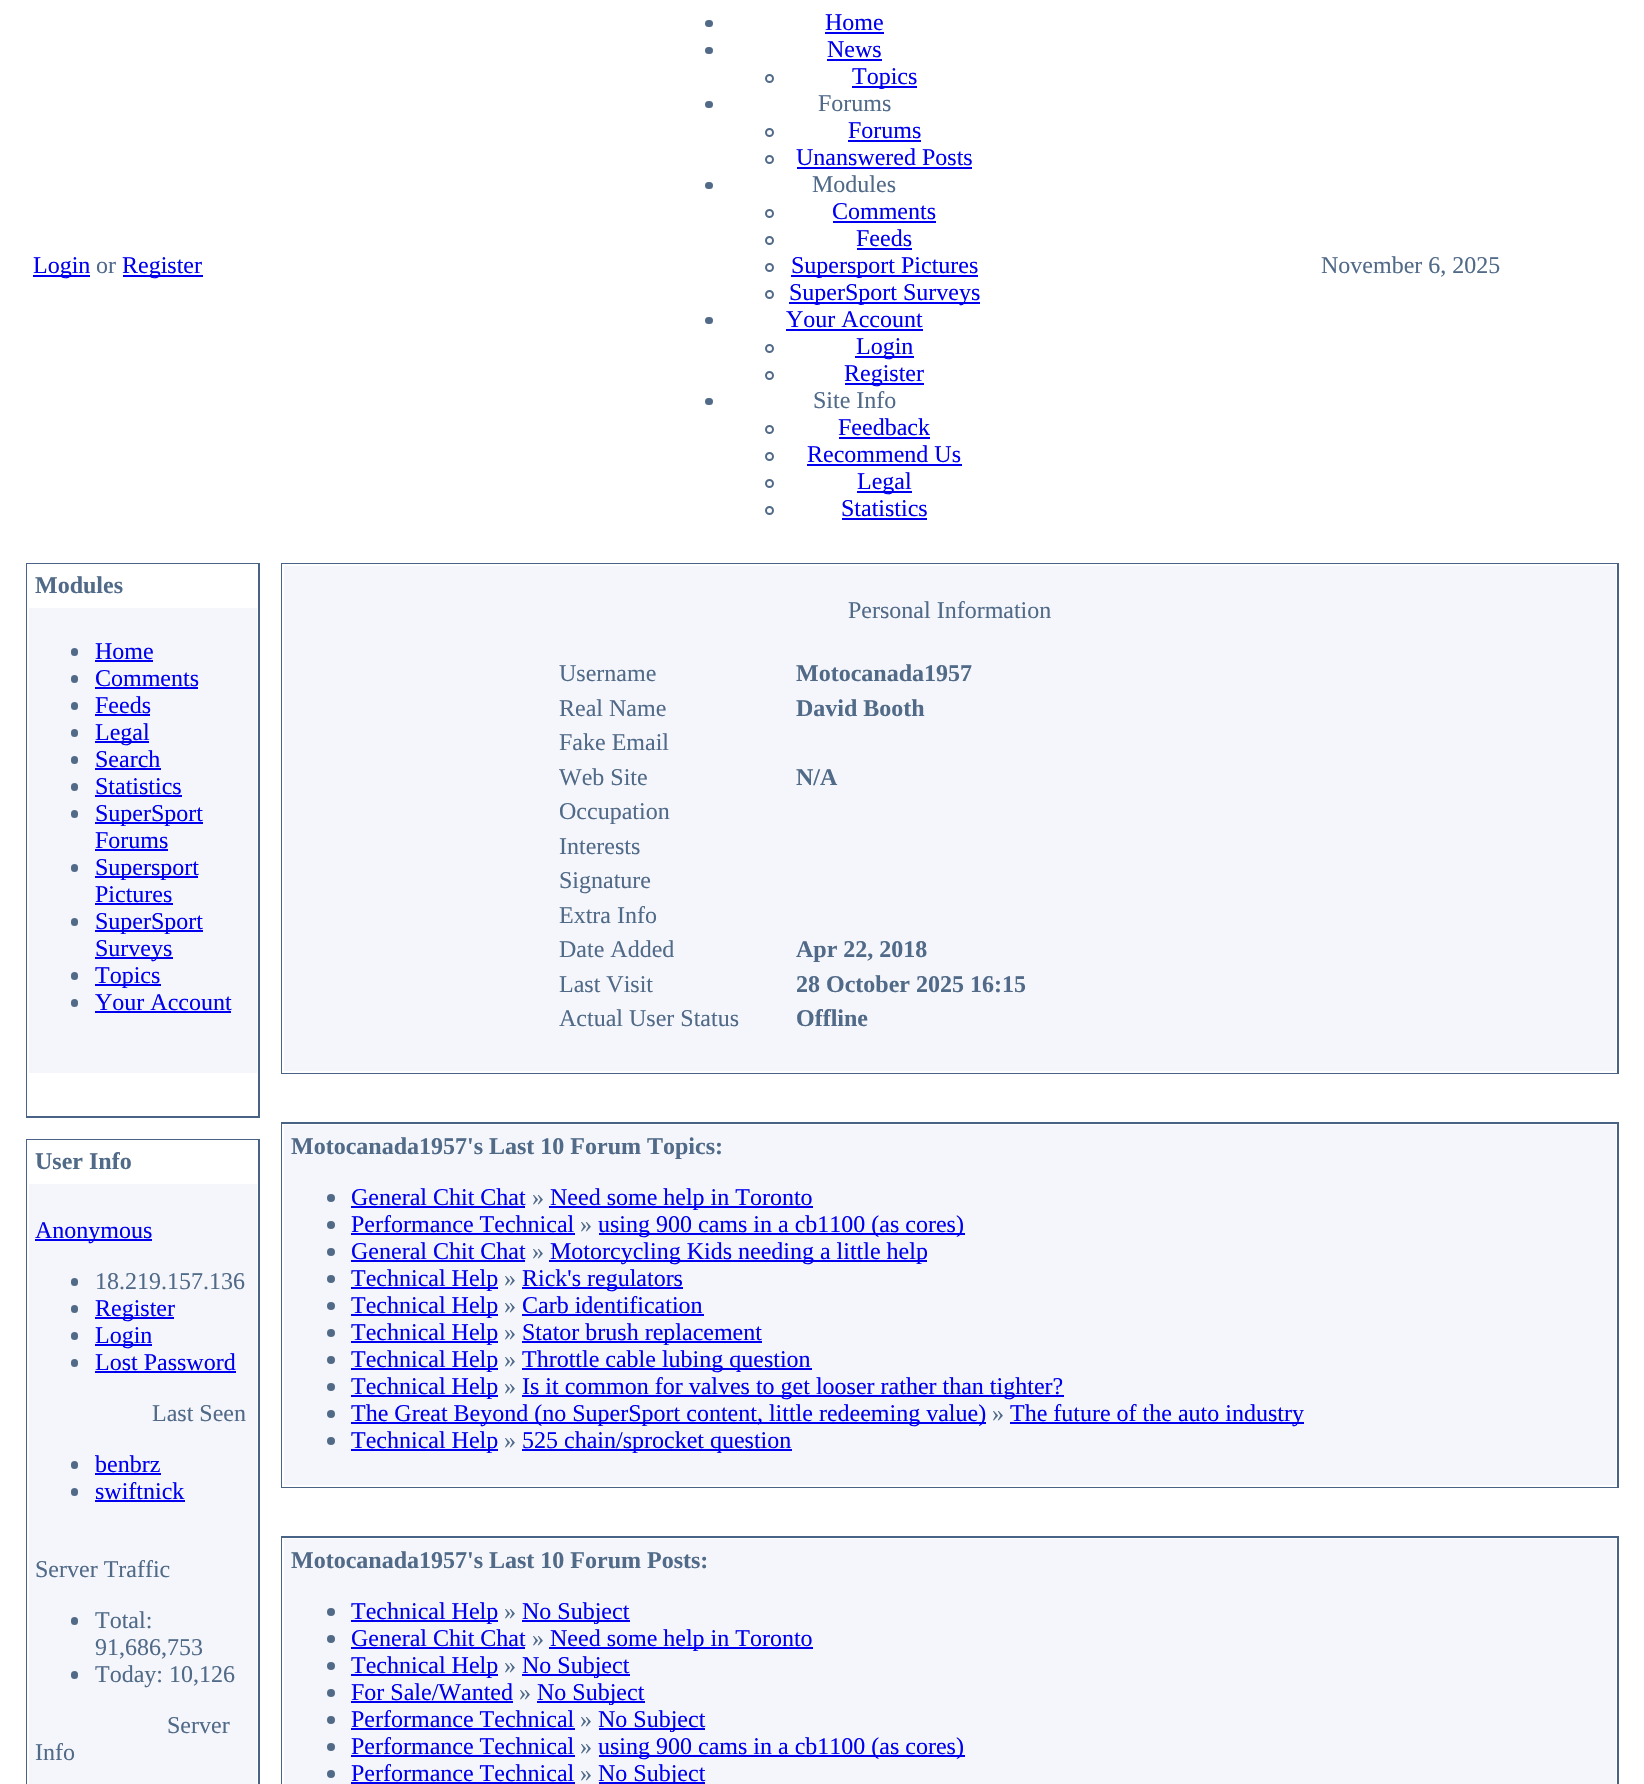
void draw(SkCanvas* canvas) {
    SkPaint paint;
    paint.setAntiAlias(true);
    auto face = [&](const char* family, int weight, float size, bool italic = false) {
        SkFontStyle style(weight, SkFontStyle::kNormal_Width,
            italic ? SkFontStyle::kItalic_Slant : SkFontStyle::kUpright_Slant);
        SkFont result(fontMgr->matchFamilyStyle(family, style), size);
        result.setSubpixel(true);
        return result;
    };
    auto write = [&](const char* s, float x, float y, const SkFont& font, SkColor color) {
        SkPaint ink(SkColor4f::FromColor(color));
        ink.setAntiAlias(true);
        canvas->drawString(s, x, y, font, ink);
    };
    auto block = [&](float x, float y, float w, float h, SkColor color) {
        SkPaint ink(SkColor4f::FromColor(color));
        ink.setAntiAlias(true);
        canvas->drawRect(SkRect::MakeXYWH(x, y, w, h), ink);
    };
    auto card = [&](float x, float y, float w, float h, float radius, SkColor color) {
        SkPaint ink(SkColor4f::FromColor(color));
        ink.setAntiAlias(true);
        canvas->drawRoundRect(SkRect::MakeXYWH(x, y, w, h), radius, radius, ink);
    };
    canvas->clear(SK_ColorWHITE);
    block(33, 275, 57, 2, SkColorSetRGB(0, 0, 238));
    auto kFont1 = face("Liberation Serif", 400, 24);
    write("Login", 33, 273, kFont1, SkColorSetRGB(0, 0, 238));
    write("or", 96, 273, kFont1, SkColorSetRGB(81, 106, 136));
    block(123, 275, 80, 2, SkColorSetRGB(0, 0, 238));
    write("Register", 122, 273, kFont1, SkColorSetRGB(0, 0, 238));
    card(705, 20, 8, 7, 3.5f, SkColorSetRGB(81, 106, 136));
    write("Home", 825, 30, kFont1, SkColorSetRGB(0, 0, 238));
    block(825, 32, 59, 2, SkColorSetRGB(0, 0, 238));
    card(705, 47, 8, 7, 3.5f, SkColorSetRGB(81, 106, 136));
    write("News", 827, 57, kFont1, SkColorSetRGB(0, 0, 238));
    block(827, 59, 55, 2, SkColorSetRGB(0, 0, 238));
    paint.setStyle(SkPaint::kStroke_Style);
    paint.setStrokeWidth(2);
    paint.setColor(SkColorSetRGB(81, 106, 136));
    canvas->drawCircle(769.5f, 78.5f, 3.5f, paint);
    block(852, 86, 65, 2, SkColorSetRGB(0, 0, 238));
    write("Topics", 852, 84, kFont1, SkColorSetRGB(0, 0, 238));
    card(705, 101, 8, 7, 3.5f, SkColorSetRGB(81, 106, 136));
    write("Forums", 818, 111, kFont1, SkColorSetRGB(81, 106, 136));
    canvas->drawCircle(769.5f, 132.5f, 3.5f, paint);
    write("Forums", 848, 138, kFont1, SkColorSetRGB(0, 0, 238));
    block(848, 140, 73, 2, SkColorSetRGB(0, 0, 238));
    canvas->drawCircle(769.5f, 159.5f, 3.5f, paint);
    write("Unanswered Posts", 796, 165, kFont1, SkColorSetRGB(0, 0, 238));
    block(797, 167, 175, 2, SkColorSetRGB(0, 0, 238));
    card(705, 182, 8, 7, 3.5f, SkColorSetRGB(81, 106, 136));
    write("Modules", 812, 192, kFont1, SkColorSetRGB(81, 106, 136));
    canvas->drawCircle(769.5f, 213.5f, 3.5f, paint);
    write("Comments", 832, 219, kFont1, SkColorSetRGB(0, 0, 238));
    block(833, 221, 103, 2, SkColorSetRGB(0, 0, 238));
    canvas->drawCircle(769.5f, 240.5f, 3.5f, paint);
    write("Feeds", 856, 246, kFont1, SkColorSetRGB(0, 0, 238));
    block(857, 248, 55, 2, SkColorSetRGB(0, 0, 238));
    canvas->drawCircle(769.5f, 267.5f, 3.5f, paint);
    block(791, 275, 187, 2, SkColorSetRGB(0, 0, 238));
    write("Supersport Pictures", 791, 273, kFont1, SkColorSetRGB(0, 0, 238));
    canvas->drawCircle(769.5f, 294.5f, 3.5f, paint);
    block(789, 302, 191, 2, SkColorSetRGB(0, 0, 238));
    write("SuperSport Surveys", 789, 300, kFont1, SkColorSetRGB(0, 0, 238));
    card(705, 317, 8, 7, 3.5f, SkColorSetRGB(81, 106, 136));
    write("Your Account", 786, 327, kFont1, SkColorSetRGB(0, 0, 238));
    block(786, 329, 137, 2, SkColorSetRGB(0, 0, 238));
    canvas->drawCircle(769.5f, 348.5f, 3.5f, paint);
    block(855, 356, 59, 2, SkColorSetRGB(0, 0, 238));
    write("Login", 856, 354, kFont1, SkColorSetRGB(0, 0, 238));
    canvas->drawCircle(769.5f, 375.5f, 3.5f, paint);
    block(845, 383, 79, 2, SkColorSetRGB(0, 0, 238));
    write("Register", 844, 381, kFont1, SkColorSetRGB(0, 0, 238));
    card(705, 398, 8, 7, 3.5f, SkColorSetRGB(81, 106, 136));
    write("Site Info", 813, 408, kFont1, SkColorSetRGB(81, 106, 136));
    canvas->drawCircle(769.5f, 429.5f, 3.5f, paint);
    write("Feedback", 838, 435, kFont1, SkColorSetRGB(0, 0, 238));
    block(839, 437, 91, 2, SkColorSetRGB(0, 0, 238));
    canvas->drawCircle(769.5f, 456.5f, 3.5f, paint);
    write("Recommend Us", 807, 462, kFont1, SkColorSetRGB(0, 0, 238));
    block(807, 464, 155, 2, SkColorSetRGB(0, 0, 238));
    canvas->drawCircle(769.5f, 483.5f, 3.5f, paint);
    block(857, 491, 55, 2, SkColorSetRGB(0, 0, 238));
    write("Legal", 857, 489, kFont1, SkColorSetRGB(0, 0, 238));
    canvas->drawCircle(769.5f, 510.5f, 3.5f, paint);
    write("Statistics", 841, 516, kFont1, SkColorSetRGB(0, 0, 238));
    block(842, 518, 85, 2, SkColorSetRGB(0, 0, 238));
    write("November 6, 2025", 1321, 273, kFont1, SkColorSetRGB(81, 106, 136));
    block(26, 563, 234, 555, SkColorSetRGB(72, 99, 134));
    block(27, 564, 231, 552, SK_ColorWHITE);
    auto kFont2 = face("Liberation Serif", 700, 24);
    write("Modules", 35, 593, kFont2, SkColorSetRGB(81, 106, 136));
    block(29, 608, 228, 465, SkColorSetRGB(244, 246, 251));
    card(71, 648, 7, 8, 3.5f, SkColorSetRGB(81, 106, 136));
    write("Home", 95, 659, kFont1, SkColorSetRGB(0, 0, 238));
    block(95, 660, 58, 2, SkColorSetRGB(0, 0, 238));
    card(71, 675, 7, 8, 3.5f, SkColorSetRGB(81, 106, 136));
    write("Comments", 95, 686, kFont1, SkColorSetRGB(0, 0, 238));
    block(95, 687, 103, 2, SkColorSetRGB(0, 0, 238));
    card(71, 702, 7, 8, 3.5f, SkColorSetRGB(81, 106, 136));
    write("Feeds", 95, 713, kFont1, SkColorSetRGB(0, 0, 238));
    block(95, 714, 55, 2, SkColorSetRGB(0, 0, 238));
    card(71, 729, 7, 8, 3.5f, SkColorSetRGB(81, 106, 136));
    block(95, 741, 54, 2, SkColorSetRGB(0, 0, 238));
    write("Legal", 95, 740, kFont1, SkColorSetRGB(0, 0, 238));
    card(71, 756, 7, 8, 3.5f, SkColorSetRGB(81, 106, 136));
    write("Search", 95, 767, kFont1, SkColorSetRGB(0, 0, 238));
    block(95, 768, 66, 2, SkColorSetRGB(0, 0, 238));
    card(71, 783, 7, 8, 3.5f, SkColorSetRGB(81, 106, 136));
    write("Statistics", 95, 794, kFont1, SkColorSetRGB(0, 0, 238));
    block(95, 795, 87, 2, SkColorSetRGB(0, 0, 238));
    card(71, 810, 7, 8, 3.5f, SkColorSetRGB(81, 106, 136));
    block(95, 822, 108, 2, SkColorSetRGB(0, 0, 238));
    write("SuperSport", 95, 821, kFont1, SkColorSetRGB(0, 0, 238));
    write("Forums", 95, 848, kFont1, SkColorSetRGB(0, 0, 238));
    block(95, 849, 73, 2, SkColorSetRGB(0, 0, 238));
    card(71, 864, 7, 8, 3.5f, SkColorSetRGB(81, 106, 136));
    block(95, 876, 103, 2, SkColorSetRGB(0, 0, 238));
    write("Supersport", 95, 875, kFont1, SkColorSetRGB(0, 0, 238));
    write("Pictures", 95, 902, kFont1, SkColorSetRGB(0, 0, 238));
    block(95, 903, 78, 2, SkColorSetRGB(0, 0, 238));
    card(71, 918, 7, 8, 3.5f, SkColorSetRGB(81, 106, 136));
    block(95, 930, 108, 2, SkColorSetRGB(0, 0, 238));
    write("SuperSport", 95, 929, kFont1, SkColorSetRGB(0, 0, 238));
    block(95, 957, 78, 2, SkColorSetRGB(0, 0, 238));
    write("Surveys", 95, 956, kFont1, SkColorSetRGB(0, 0, 238));
    card(71, 972, 7, 8, 3.5f, SkColorSetRGB(81, 106, 136));
    block(95, 984, 66, 2, SkColorSetRGB(0, 0, 238));
    write("Topics", 95, 983, kFont1, SkColorSetRGB(0, 0, 238));
    card(71, 999, 7, 8, 3.5f, SkColorSetRGB(81, 106, 136));
    write("Your Account", 95, 1010, kFont1, SkColorSetRGB(0, 0, 238));
    block(95, 1011, 136, 2, SkColorSetRGB(0, 0, 238));
    block(26, 1139, 234, 645, SkColorSetRGB(72, 99, 134));
    block(27, 1140, 231, 644, SK_ColorWHITE);
    write("User Info", 35, 1169, kFont2, SkColorSetRGB(81, 106, 136));
    block(29, 1184, 228, 600, SkColorSetRGB(244, 246, 251));
    block(35, 1239, 117, 2, SkColorSetRGB(0, 0, 238));
    write("Anonymous", 35, 1238, kFont1, SkColorSetRGB(0, 0, 238));
    card(71, 1278, 7, 8, 3.5f, SkColorSetRGB(81, 106, 136));
    write("18.219.157.136", 95, 1289, kFont1, SkColorSetRGB(81, 106, 136));
    card(71, 1305, 7, 8, 3.5f, SkColorSetRGB(81, 106, 136));
    block(95, 1317, 79, 2, SkColorSetRGB(0, 0, 238));
    write("Register", 95, 1316, kFont1, SkColorSetRGB(0, 0, 238));
    card(71, 1332, 7, 8, 3.5f, SkColorSetRGB(81, 106, 136));
    block(95, 1344, 57, 2, SkColorSetRGB(0, 0, 238));
    write("Login", 95, 1343, kFont1, SkColorSetRGB(0, 0, 238));
    card(71, 1359, 7, 8, 3.5f, SkColorSetRGB(81, 106, 136));
    write("Lost Password", 95, 1370, kFont1, SkColorSetRGB(0, 0, 238));
    block(95, 1371, 141, 2, SkColorSetRGB(0, 0, 238));
    write("Last Seen", 152, 1421, kFont1, SkColorSetRGB(81, 106, 136));
    card(71, 1461, 7, 8, 3.5f, SkColorSetRGB(81, 106, 136));
    write("benbrz", 95, 1472, kFont1, SkColorSetRGB(0, 0, 238));
    block(95, 1473, 66, 2, SkColorSetRGB(0, 0, 238));
    card(71, 1488, 7, 8, 3.5f, SkColorSetRGB(81, 106, 136));
    write("swiftnick", 95, 1499, kFont1, SkColorSetRGB(0, 0, 238));
    block(95, 1500, 90, 2, SkColorSetRGB(0, 0, 238));
    write("Server Traffic", 35, 1577, kFont1, SkColorSetRGB(81, 106, 136));
    card(71, 1617, 7, 8, 3.5f, SkColorSetRGB(81, 106, 136));
    write("Total:", 95, 1628, kFont1, SkColorSetRGB(81, 106, 136));
    write("91,686,753", 95, 1655, kFont1, SkColorSetRGB(81, 106, 136));
    card(71, 1671, 7, 8, 3.5f, SkColorSetRGB(81, 106, 136));
    write("Today: 10,126", 95, 1682, kFont1, SkColorSetRGB(81, 106, 136));
    write("Server", 167, 1733, kFont1, SkColorSetRGB(81, 106, 136));
    write("Info", 35, 1760, kFont1, SkColorSetRGB(81, 106, 136));
    block(281, 563, 1338, 511, SkColorSetRGB(72, 99, 134));
    block(282, 564, 1335, 509, SK_ColorWHITE);
    block(284, 566, 1332, 505, SkColorSetRGB(244, 246, 251));
    write("Personal Information", 848, 618, kFont1, SkColorSetRGB(81, 106, 136));
    write("Username", 559, 681, kFont1, SkColorSetRGB(81, 106, 136));
    write("Motocanada1957", 796, 681, kFont2, SkColorSetRGB(81, 106, 136));
    write("Real Name", 559, 716, kFont1, SkColorSetRGB(81, 106, 136));
    write("David Booth", 796, 716, kFont2, SkColorSetRGB(81, 106, 136));
    write("Fake Email", 559, 750, kFont1, SkColorSetRGB(81, 106, 136));
    write("Web Site", 559, 785, kFont1, SkColorSetRGB(81, 106, 136));
    write("N/A", 796, 785, kFont2, SkColorSetRGB(81, 106, 136));
    write("Occupation", 559, 819, kFont1, SkColorSetRGB(81, 106, 136));
    write("Interests", 559, 854, kFont1, SkColorSetRGB(81, 106, 136));
    write("Signature", 559, 888, kFont1, SkColorSetRGB(81, 106, 136));
    write("Extra Info", 559, 923, kFont1, SkColorSetRGB(81, 106, 136));
    write("Date Added", 559, 957, kFont1, SkColorSetRGB(81, 106, 136));
    write("Apr 22, 2018", 796, 957, kFont2, SkColorSetRGB(81, 106, 136));
    write("Last Visit", 559, 992, kFont1, SkColorSetRGB(81, 106, 136));
    write("28 October 2025 16:15", 796, 992, kFont2, SkColorSetRGB(81, 106, 136));
    write("Actual User Status", 559, 1026, kFont1, SkColorSetRGB(81, 106, 136));
    write("Offline", 796, 1026, kFont2, SkColorSetRGB(81, 106, 136));
    block(281, 1122, 1338, 366, SkColorSetRGB(72, 99, 134));
    block(282, 1124, 1335, 363, SK_ColorWHITE);
    block(284, 1125, 1332, 360, SkColorSetRGB(244, 246, 251));
    write("Motocanada1957's Last 10 Forum Topics:", 291, 1154, kFont2, SkColorSetRGB(81, 106, 136));
    paint.setStyle(SkPaint::kFill_Style);
    canvas->drawCircle(331, 1198, 4, paint);
    write("General Chit Chat", 351, 1205, kFont1, SkColorSetRGB(0, 0, 238));
    block(351, 1206, 174, 2, SkColorSetRGB(0, 0, 238));
    write("»", 532, 1205, kFont1, SkColorSetRGB(81, 106, 136));
    block(549, 1206, 264, 2, SkColorSetRGB(0, 0, 238));
    write("Need some help in Toronto", 550, 1205, kFont1, SkColorSetRGB(0, 0, 238));
    canvas->drawCircle(331, 1225, 4, paint);
    write("Performance Technical", 351, 1232, kFont1, SkColorSetRGB(0, 0, 238));
    block(351, 1233, 224, 2, SkColorSetRGB(0, 0, 238));
    write("»", 580, 1232, kFont1, SkColorSetRGB(81, 106, 136));
    block(599, 1233, 366, 2, SkColorSetRGB(0, 0, 238));
    write("using 900 cams in a cb1100 (as cores)", 598, 1232, kFont1, SkColorSetRGB(0, 0, 238));
    canvas->drawCircle(331, 1252, 4, paint);
    write("General Chit Chat", 351, 1259, kFont1, SkColorSetRGB(0, 0, 238));
    block(351, 1260, 174, 2, SkColorSetRGB(0, 0, 238));
    write("»", 532, 1259, kFont1, SkColorSetRGB(81, 106, 136));
    block(549, 1260, 378, 2, SkColorSetRGB(0, 0, 238));
    write("Motorcycling Kids needing a little help", 550, 1259, kFont1, SkColorSetRGB(0, 0, 238));
    canvas->drawCircle(331, 1279, 4, paint);
    block(351, 1287, 147, 2, SkColorSetRGB(0, 0, 238));
    write("Technical Help", 351, 1286, kFont1, SkColorSetRGB(0, 0, 238));
    write("»", 504, 1286, kFont1, SkColorSetRGB(81, 106, 136));
    block(522, 1287, 161, 2, SkColorSetRGB(0, 0, 238));
    write("Rick's regulators", 522, 1286, kFont1, SkColorSetRGB(0, 0, 238));
    canvas->drawCircle(331, 1306, 4, paint);
    block(351, 1314, 147, 2, SkColorSetRGB(0, 0, 238));
    write("Technical Help", 351, 1313, kFont1, SkColorSetRGB(0, 0, 238));
    write("»", 504, 1313, kFont1, SkColorSetRGB(81, 106, 136));
    write("Carb identification", 522, 1313, kFont1, SkColorSetRGB(0, 0, 238));
    block(522, 1314, 182, 2, SkColorSetRGB(0, 0, 238));
    canvas->drawCircle(331, 1333, 4, paint);
    block(351, 1341, 147, 2, SkColorSetRGB(0, 0, 238));
    write("Technical Help", 351, 1340, kFont1, SkColorSetRGB(0, 0, 238));
    write("»", 504, 1340, kFont1, SkColorSetRGB(81, 106, 136));
    block(522, 1341, 240, 2, SkColorSetRGB(0, 0, 238));
    write("Stator brush replacement", 522, 1340, kFont1, SkColorSetRGB(0, 0, 238));
    canvas->drawCircle(331, 1360, 4, paint);
    block(351, 1368, 147, 2, SkColorSetRGB(0, 0, 238));
    write("Technical Help", 351, 1367, kFont1, SkColorSetRGB(0, 0, 238));
    write("»", 504, 1367, kFont1, SkColorSetRGB(81, 106, 136));
    block(522, 1368, 290, 2, SkColorSetRGB(0, 0, 238));
    write("Throttle cable lubing question", 522, 1367, kFont1, SkColorSetRGB(0, 0, 238));
    canvas->drawCircle(331, 1387, 4, paint);
    block(351, 1395, 147, 2, SkColorSetRGB(0, 0, 238));
    write("Technical Help", 351, 1394, kFont1, SkColorSetRGB(0, 0, 238));
    write("»", 504, 1394, kFont1, SkColorSetRGB(81, 106, 136));
    block(522, 1395, 542, 2, SkColorSetRGB(0, 0, 238));
    write("Is it common for valves to get looser rather than tighter?", 522, 1394, kFont1, SkColorSetRGB(0, 0, 238));
    canvas->drawCircle(331, 1414, 4, paint);
    block(351, 1422, 635, 2, SkColorSetRGB(0, 0, 238));
    write("The Great Beyond (no SuperSport content, little redeeming value)", 351, 1421, kFont1, SkColorSetRGB(0, 0, 238));
    write("»", 992, 1421, kFont1, SkColorSetRGB(81, 106, 136));
    block(1010, 1422, 294, 2, SkColorSetRGB(0, 0, 238));
    write("The future of the auto industry", 1010, 1421, kFont1, SkColorSetRGB(0, 0, 238));
    canvas->drawCircle(331, 1441, 4, paint);
    block(351, 1449, 147, 2, SkColorSetRGB(0, 0, 238));
    write("Technical Help", 351, 1448, kFont1, SkColorSetRGB(0, 0, 238));
    write("»", 504, 1448, kFont1, SkColorSetRGB(81, 106, 136));
    block(522, 1449, 270, 2, SkColorSetRGB(0, 0, 238));
    write("525 chain/sprocket question", 522, 1448, kFont1, SkColorSetRGB(0, 0, 238));
    block(281, 1536, 1338, 248, SkColorSetRGB(72, 99, 134));
    block(282, 1538, 1335, 246, SK_ColorWHITE);
    block(284, 1539, 1332, 245, SkColorSetRGB(244, 246, 251));
    write("Motocanada1957's Last 10 Forum Posts:", 291, 1568, kFont2, SkColorSetRGB(81, 106, 136));
    canvas->drawCircle(331, 1612, 4, paint);
    block(351, 1620, 147, 2, SkColorSetRGB(0, 0, 238));
    write("Technical Help", 351, 1619, kFont1, SkColorSetRGB(0, 0, 238));
    write("»", 504, 1619, kFont1, SkColorSetRGB(81, 106, 136));
    block(522, 1620, 108, 2, SkColorSetRGB(0, 0, 238));
    write("No Subject", 522, 1619, kFont1, SkColorSetRGB(0, 0, 238));
    canvas->drawCircle(331, 1639, 4, paint);
    write("General Chit Chat", 351, 1646, kFont1, SkColorSetRGB(0, 0, 238));
    block(351, 1647, 174, 2, SkColorSetRGB(0, 0, 238));
    write("»", 532, 1646, kFont1, SkColorSetRGB(81, 106, 136));
    block(549, 1647, 264, 2, SkColorSetRGB(0, 0, 238));
    write("Need some help in Toronto", 550, 1646, kFont1, SkColorSetRGB(0, 0, 238));
    canvas->drawCircle(331, 1666, 4, paint);
    block(351, 1674, 147, 2, SkColorSetRGB(0, 0, 238));
    write("Technical Help", 351, 1673, kFont1, SkColorSetRGB(0, 0, 238));
    write("»", 504, 1673, kFont1, SkColorSetRGB(81, 106, 136));
    block(522, 1674, 108, 2, SkColorSetRGB(0, 0, 238));
    write("No Subject", 522, 1673, kFont1, SkColorSetRGB(0, 0, 238));
    canvas->drawCircle(331, 1693, 4, paint);
    write("For Sale/Wanted", 351, 1700, kFont1, SkColorSetRGB(0, 0, 238));
    block(351, 1701, 162, 2, SkColorSetRGB(0, 0, 238));
    write("»", 519, 1700, kFont1, SkColorSetRGB(81, 106, 136));
    block(537, 1701, 108, 2, SkColorSetRGB(0, 0, 238));
    write("No Subject", 537, 1700, kFont1, SkColorSetRGB(0, 0, 238));
    canvas->drawCircle(331, 1720, 4, paint);
    write("Performance Technical", 351, 1727, kFont1, SkColorSetRGB(0, 0, 238));
    block(351, 1728, 224, 2, SkColorSetRGB(0, 0, 238));
    write("»", 580, 1727, kFont1, SkColorSetRGB(81, 106, 136));
    block(599, 1728, 106, 2, SkColorSetRGB(0, 0, 238));
    write("No Subject", 598, 1727, kFont1, SkColorSetRGB(0, 0, 238));
    canvas->drawCircle(331, 1747, 4, paint);
    write("Performance Technical", 351, 1754, kFont1, SkColorSetRGB(0, 0, 238));
    block(351, 1755, 224, 2, SkColorSetRGB(0, 0, 238));
    write("»", 580, 1754, kFont1, SkColorSetRGB(81, 106, 136));
    block(599, 1755, 366, 2, SkColorSetRGB(0, 0, 238));
    write("using 900 cams in a cb1100 (as cores)", 598, 1754, kFont1, SkColorSetRGB(0, 0, 238));
    canvas->drawCircle(331, 1774, 4, paint);
    write("Performance Technical", 351, 1781, kFont1, SkColorSetRGB(0, 0, 238));
    block(351, 1782, 224, 2, SkColorSetRGB(0, 0, 238));
    write("»", 580, 1781, kFont1, SkColorSetRGB(81, 106, 136));
    block(599, 1782, 106, 2, SkColorSetRGB(0, 0, 238));
    write("No Subject", 598, 1781, kFont1, SkColorSetRGB(0, 0, 238));
}
